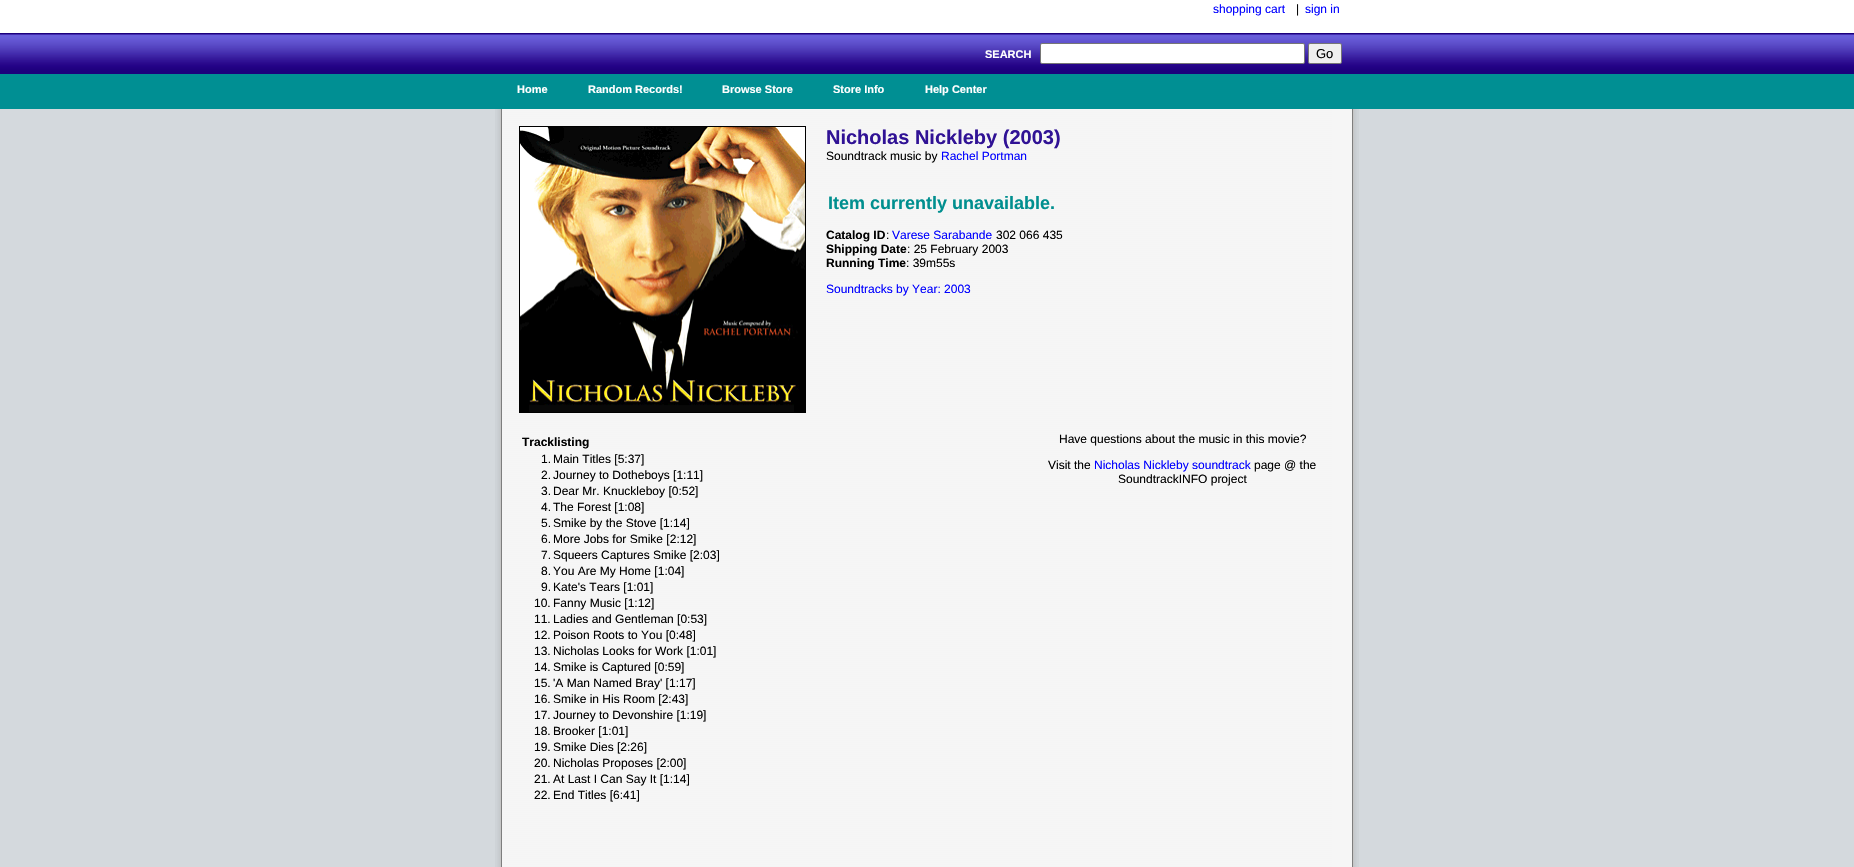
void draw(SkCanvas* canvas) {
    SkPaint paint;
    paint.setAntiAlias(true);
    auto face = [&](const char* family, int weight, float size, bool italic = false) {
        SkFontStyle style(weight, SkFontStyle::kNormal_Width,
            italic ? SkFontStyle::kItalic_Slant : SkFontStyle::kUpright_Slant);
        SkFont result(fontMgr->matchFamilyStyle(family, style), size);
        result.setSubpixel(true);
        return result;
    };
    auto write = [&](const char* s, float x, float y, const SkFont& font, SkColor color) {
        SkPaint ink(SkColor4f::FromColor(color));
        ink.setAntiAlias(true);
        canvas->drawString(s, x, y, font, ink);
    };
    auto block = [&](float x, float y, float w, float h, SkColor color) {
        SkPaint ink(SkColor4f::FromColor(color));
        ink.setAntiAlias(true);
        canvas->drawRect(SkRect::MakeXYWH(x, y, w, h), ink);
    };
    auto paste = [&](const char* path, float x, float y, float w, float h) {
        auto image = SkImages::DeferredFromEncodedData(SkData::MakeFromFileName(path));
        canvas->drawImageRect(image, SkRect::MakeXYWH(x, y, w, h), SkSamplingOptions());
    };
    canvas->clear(SK_ColorWHITE);
    auto kFont1 = face("Liberation Sans", 400, 12);
    write("shopping cart", 1213, 13, kFont1, SkColorSetRGB(0, 0, 255));
    write("|", 1296, 13, kFont1, SK_ColorBLACK);
    write("sign in", 1305, 13, kFont1, SkColorSetRGB(0, 0, 255));
    paste("pic1.png", 0, 33, 1854, 41);
    auto kFont2 = face("Liberation Sans", 700, 11);
    write("SEARCH", 985, 58, kFont2, SK_ColorWHITE);
    paint.setColor(SK_ColorWHITE);
    canvas->drawRoundRect(SkRect::MakeXYWH(1040.5f, 43.5f, 264, 20), 1.5f, 1.5f, paint);
    paint.setStyle(SkPaint::kStroke_Style);
    paint.setStrokeWidth(1);
    paint.setColor(SkColorSetRGB(118, 118, 118));
    canvas->drawRoundRect(SkRect::MakeXYWH(1040.5f, 43.5f, 264, 20), 1.5f, 1.5f, paint);
    paint.setStyle(SkPaint::kFill_Style);
    paint.setColor(SkColorSetRGB(239, 239, 239));
    canvas->drawRoundRect(SkRect::MakeXYWH(1308.5f, 43.5f, 33, 20), 1.5f, 1.5f, paint);
    paint.setStyle(SkPaint::kStroke_Style);
    paint.setColor(SkColorSetRGB(118, 118, 118));
    canvas->drawRoundRect(SkRect::MakeXYWH(1308.5f, 43.5f, 33, 20), 1.5f, 1.5f, paint);
    auto kFont3 = face("Liberation Sans", 400, 13);
    write("Go", 1316, 58, kFont3, SK_ColorBLACK);
    block(0, 74, 1854, 35, SkColorSetRGB(0, 143, 147));
    write("Home", 517, 93, kFont2, SK_ColorWHITE);
    write("Random Records!", 588, 93, kFont2, SK_ColorWHITE);
    write("Browse Store", 722, 93, kFont2, SK_ColorWHITE);
    write("Store Info", 833, 93, kFont2, SK_ColorWHITE);
    write("Help Center", 925, 93, kFont2, SK_ColorWHITE);
    block(0, 109, 1854, 758, SkColorSetRGB(212, 217, 221));
    paste("pic2.png", 495, 109, 864, 758);
    paint.setColor(SK_ColorBLACK);
    canvas->drawRect(SkRect::MakeXYWH(519.5f, 126.5f, 286, 286), paint);
    paste("pic3.png", 520, 127, 285, 285);
    auto kFont4 = face("Liberation Sans", 700, 20);
    write("Nicholas Nickleby (2003)", 826, 144, kFont4, SkColorSetRGB(48, 18, 149));
    write("Soundtrack music by", 826, 160, kFont1, SK_ColorBLACK);
    write("Rachel Portman", 941, 160, kFont1, SkColorSetRGB(0, 0, 255));
    auto kFont5 = face("Liberation Sans", 700, 18);
    write("Item currently unavailable.", 828, 209, kFont5, SkColorSetRGB(0, 143, 143));
    auto kFont6 = face("Liberation Sans", 700, 12);
    write("Catalog ID", 826, 239, kFont6, SK_ColorBLACK);
    write(":", 886, 239, kFont1, SK_ColorBLACK);
    write("Varese Sarabande", 892, 239, kFont1, SkColorSetRGB(0, 0, 255));
    write("302 066 435", 996, 239, kFont1, SK_ColorBLACK);
    write("Shipping Date", 826, 253, kFont6, SK_ColorBLACK);
    write(": 25 February 2003", 907, 253, kFont1, SK_ColorBLACK);
    write("Running Time", 826, 267, kFont6, SK_ColorBLACK);
    write(": 39m55s", 906, 267, kFont1, SK_ColorBLACK);
    write("Soundtracks by Year: 2003", 826, 293, kFont1, SkColorSetRGB(0, 0, 255));
    write("Tracklisting", 522, 446, kFont6, SK_ColorBLACK);
    write("1.", 541, 463, kFont1, SK_ColorBLACK);
    write("Main Titles [5:37]", 553, 463, kFont1, SK_ColorBLACK);
    write("2.", 541, 479, kFont1, SK_ColorBLACK);
    write("Journey to Dotheboys [1:11]", 553, 479, kFont1, SK_ColorBLACK);
    write("3.", 541, 495, kFont1, SK_ColorBLACK);
    write("Dear Mr. Knuckleboy [0:52]", 553, 495, kFont1, SK_ColorBLACK);
    write("4.", 541, 511, kFont1, SK_ColorBLACK);
    write("The Forest [1:08]", 553, 511, kFont1, SK_ColorBLACK);
    write("5.", 541, 527, kFont1, SK_ColorBLACK);
    write("Smike by the Stove [1:14]", 553, 527, kFont1, SK_ColorBLACK);
    write("6.", 541, 543, kFont1, SK_ColorBLACK);
    write("More Jobs for Smike [2:12]", 553, 543, kFont1, SK_ColorBLACK);
    write("7.", 541, 559, kFont1, SK_ColorBLACK);
    write("Squeers Captures Smike [2:03]", 553, 559, kFont1, SK_ColorBLACK);
    write("8.", 541, 575, kFont1, SK_ColorBLACK);
    write("You Are My Home [1:04]", 553, 575, kFont1, SK_ColorBLACK);
    write("9.", 541, 591, kFont1, SK_ColorBLACK);
    write("Kate's Tears [1:01]", 553, 591, kFont1, SK_ColorBLACK);
    write("10.", 534, 607, kFont1, SK_ColorBLACK);
    write("Fanny Music [1:12]", 553, 607, kFont1, SK_ColorBLACK);
    write("11.", 534, 623, kFont1, SK_ColorBLACK);
    write("Ladies and Gentleman [0:53]", 553, 623, kFont1, SK_ColorBLACK);
    write("12.", 534, 639, kFont1, SK_ColorBLACK);
    write("Poison Roots to You [0:48]", 553, 639, kFont1, SK_ColorBLACK);
    write("13.", 534, 655, kFont1, SK_ColorBLACK);
    write("Nicholas Looks for Work [1:01]", 553, 655, kFont1, SK_ColorBLACK);
    write("14.", 534, 671, kFont1, SK_ColorBLACK);
    write("Smike is Captured [0:59]", 553, 671, kFont1, SK_ColorBLACK);
    write("15.", 534, 687, kFont1, SK_ColorBLACK);
    write("'A Man Named Bray' [1:17]", 553, 687, kFont1, SK_ColorBLACK);
    write("16.", 534, 703, kFont1, SK_ColorBLACK);
    write("Smike in His Room [2:43]", 553, 703, kFont1, SK_ColorBLACK);
    write("17.", 534, 719, kFont1, SK_ColorBLACK);
    write("Journey to Devonshire [1:19]", 553, 719, kFont1, SK_ColorBLACK);
    write("18.", 534, 735, kFont1, SK_ColorBLACK);
    write("Brooker [1:01]", 553, 735, kFont1, SK_ColorBLACK);
    write("19.", 534, 751, kFont1, SK_ColorBLACK);
    write("Smike Dies [2:26]", 553, 751, kFont1, SK_ColorBLACK);
    write("20.", 534, 767, kFont1, SK_ColorBLACK);
    write("Nicholas Proposes [2:00]", 553, 767, kFont1, SK_ColorBLACK);
    write("21.", 534, 783, kFont1, SK_ColorBLACK);
    write("At Last I Can Say It [1:14]", 553, 783, kFont1, SK_ColorBLACK);
    write("22.", 534, 799, kFont1, SK_ColorBLACK);
    write("End Titles [6:41]", 553, 799, kFont1, SK_ColorBLACK);
    write("Have questions about the music in this movie?", 1059, 443, kFont1, SK_ColorBLACK);
    write("Visit the", 1048, 469, kFont1, SK_ColorBLACK);
    write("Nicholas Nickleby soundtrack", 1094, 469, kFont1, SkColorSetRGB(0, 0, 255));
    write("page @ the", 1254, 469, kFont1, SK_ColorBLACK);
    write("SoundtrackINFO project", 1118, 483, kFont1, SK_ColorBLACK);
}
